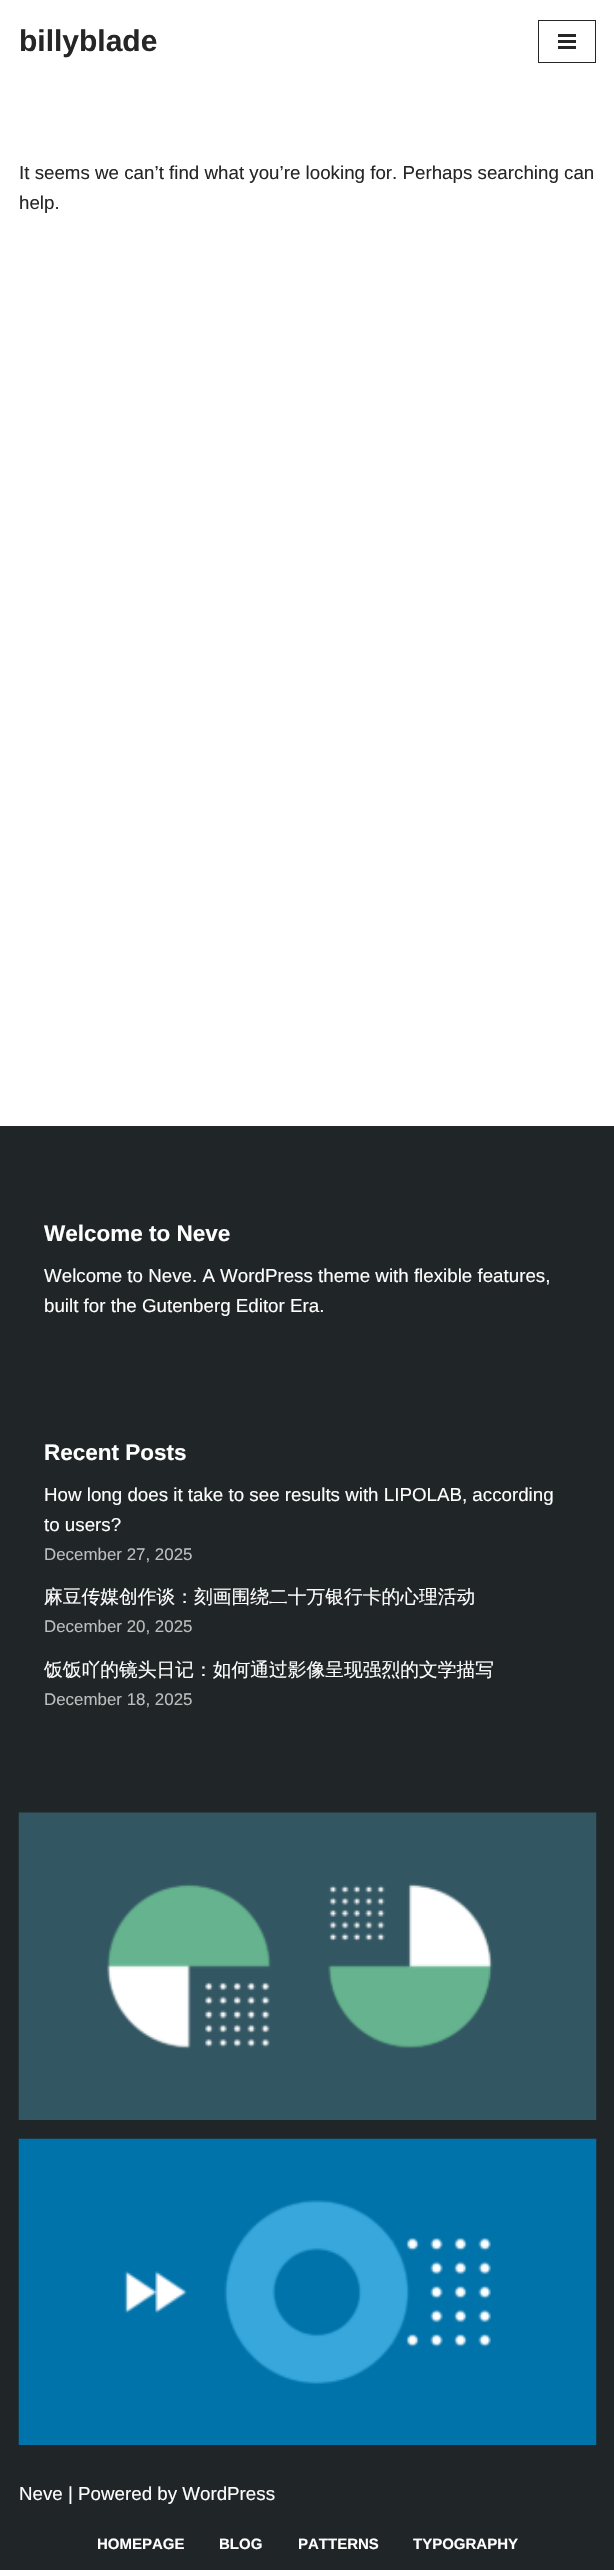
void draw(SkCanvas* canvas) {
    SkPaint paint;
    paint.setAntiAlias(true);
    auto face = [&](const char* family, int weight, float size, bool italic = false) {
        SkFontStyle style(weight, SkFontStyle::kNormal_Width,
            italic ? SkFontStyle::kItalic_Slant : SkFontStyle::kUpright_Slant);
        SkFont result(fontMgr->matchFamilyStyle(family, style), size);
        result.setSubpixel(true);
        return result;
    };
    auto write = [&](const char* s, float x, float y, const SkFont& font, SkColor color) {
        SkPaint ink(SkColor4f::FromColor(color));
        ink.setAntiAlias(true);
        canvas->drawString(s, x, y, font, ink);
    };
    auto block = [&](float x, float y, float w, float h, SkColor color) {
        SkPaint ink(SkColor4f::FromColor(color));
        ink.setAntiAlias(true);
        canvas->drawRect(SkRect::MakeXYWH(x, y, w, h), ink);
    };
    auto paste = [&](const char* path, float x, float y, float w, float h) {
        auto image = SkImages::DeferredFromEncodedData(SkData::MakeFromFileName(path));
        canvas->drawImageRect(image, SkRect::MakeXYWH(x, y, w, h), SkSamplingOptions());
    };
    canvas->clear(SK_ColorWHITE);
    auto kFont1 = face("Liberation Sans", 700, 30);
    write("billyblade", 19, 51, kFont1, SkColorSetRGB(39, 38, 38));
    paint.setStyle(SkPaint::kStroke_Style);
    paint.setStrokeWidth(1);
    paint.setColor(SkColorSetRGB(39, 38, 38));
    canvas->drawRect(SkRect::MakeXYWH(538.5f, 20.5f, 57, 42), paint);
    block(558, 34, 18, 3, SkColorSetRGB(39, 38, 38));
    block(558, 40, 18, 3, SkColorSetRGB(39, 38, 38));
    block(558, 46, 18, 3, SkColorSetRGB(39, 38, 38));
    auto kFont2 = face("Liberation Sans", 400, 18.75f);
    write("It seems we can’t find what you’re looking for. Perhaps searching can", 19, 179, kFont2, SkColorSetRGB(39, 38, 38));
    write("help.", 19, 209, kFont2, SkColorSetRGB(39, 38, 38));
    block(0, 1126, 614, 1444, SkColorSetRGB(32, 37, 39));
    auto kFont3 = face("Liberation Sans", 700, 22.5f);
    write("Welcome to Neve", 44, 1241, kFont3, SK_ColorWHITE);
    write("Welcome to Neve. A WordPress theme with flexible features,", 44, 1282, kFont2, SK_ColorWHITE);
    write("built for the Gutenberg Editor Era.", 44, 1312, kFont2, SK_ColorWHITE);
    write("Recent Posts", 44, 1460, kFont3, SK_ColorWHITE);
    write("How long does it take to see results with LIPOLAB, according", 44, 1501, kFont2, SK_ColorWHITE);
    write("to users?", 44, 1531, kFont2, SK_ColorWHITE);
    auto kFont4 = face("Liberation Sans", 400, 16.9f);
    write("December 27, 2025", 44, 1560, kFont4, SkColorSetRGB(188, 190, 190));
    auto kFont5 = face("WenQuanYi Zen Hei", 500, 18.75f);
    write("麻豆传媒创作谈：刻画围绕二十万银行卡的心理活动", 44, 1603, kFont5, SK_ColorWHITE);
    write("December 20, 2025", 44, 1632, kFont4, SkColorSetRGB(188, 190, 190));
    write("饭饭吖的镜头日记：如何通过影像呈现强烈的文学描写", 44, 1676, kFont5, SK_ColorWHITE);
    write("December 18, 2025", 44, 1705, kFont4, SkColorSetRGB(188, 190, 190));
    paste("pic1.png", 18, 1812, 579, 308);
    paste("pic2.png", 18, 2138, 579, 307);
    write("Neve | Powered by WordPress", 19, 2500, kFont2, SK_ColorWHITE);
    auto kFont6 = face("Liberation Sans", 700, 15);
    write("HOMEPAGE", 97, 2549, kFont6, SK_ColorWHITE);
    write("BLOG", 219, 2549, kFont6, SK_ColorWHITE);
    write("PATTERNS", 298, 2549, kFont6, SK_ColorWHITE);
    write("TYPOGRAPHY", 413, 2549, kFont6, SK_ColorWHITE);
}
